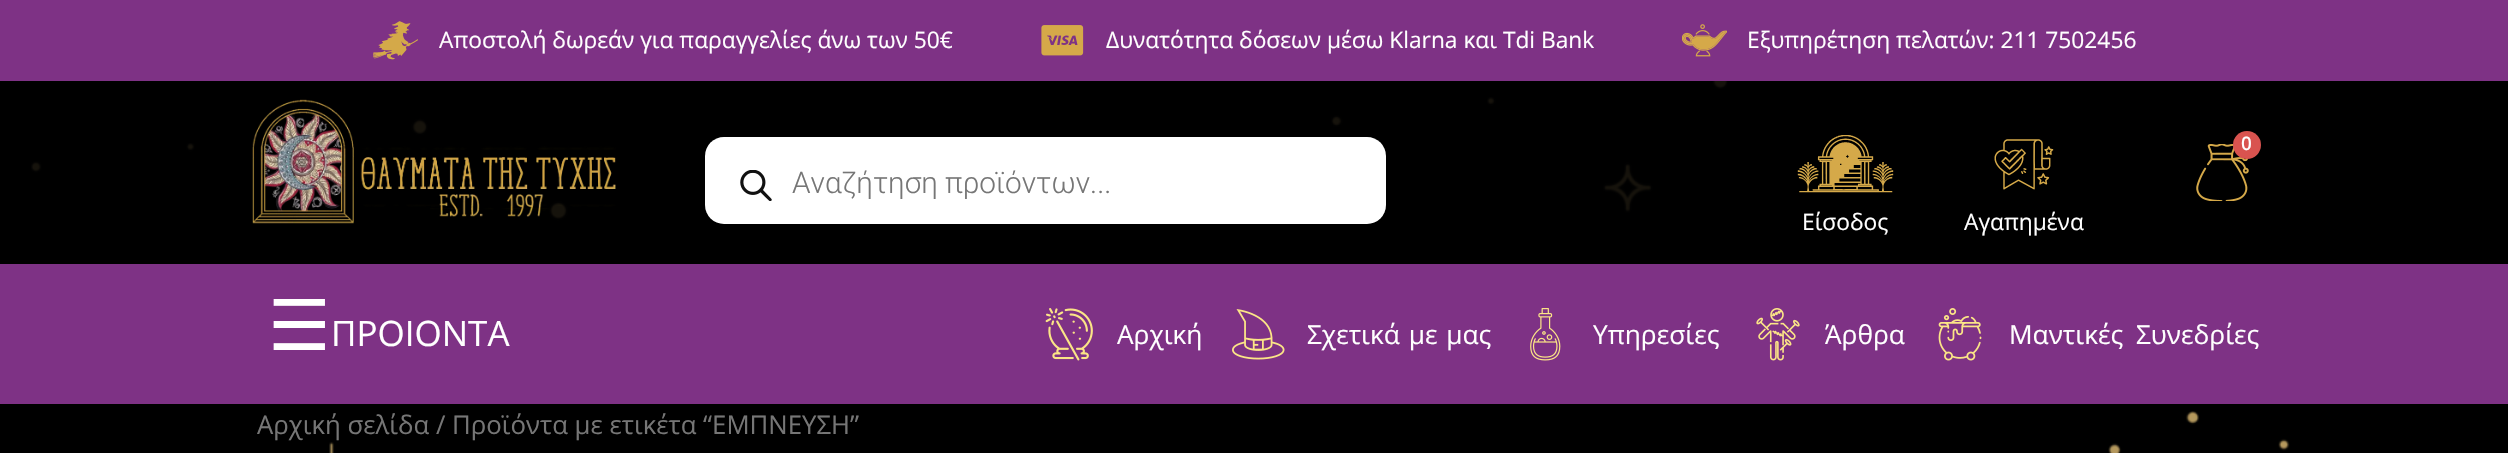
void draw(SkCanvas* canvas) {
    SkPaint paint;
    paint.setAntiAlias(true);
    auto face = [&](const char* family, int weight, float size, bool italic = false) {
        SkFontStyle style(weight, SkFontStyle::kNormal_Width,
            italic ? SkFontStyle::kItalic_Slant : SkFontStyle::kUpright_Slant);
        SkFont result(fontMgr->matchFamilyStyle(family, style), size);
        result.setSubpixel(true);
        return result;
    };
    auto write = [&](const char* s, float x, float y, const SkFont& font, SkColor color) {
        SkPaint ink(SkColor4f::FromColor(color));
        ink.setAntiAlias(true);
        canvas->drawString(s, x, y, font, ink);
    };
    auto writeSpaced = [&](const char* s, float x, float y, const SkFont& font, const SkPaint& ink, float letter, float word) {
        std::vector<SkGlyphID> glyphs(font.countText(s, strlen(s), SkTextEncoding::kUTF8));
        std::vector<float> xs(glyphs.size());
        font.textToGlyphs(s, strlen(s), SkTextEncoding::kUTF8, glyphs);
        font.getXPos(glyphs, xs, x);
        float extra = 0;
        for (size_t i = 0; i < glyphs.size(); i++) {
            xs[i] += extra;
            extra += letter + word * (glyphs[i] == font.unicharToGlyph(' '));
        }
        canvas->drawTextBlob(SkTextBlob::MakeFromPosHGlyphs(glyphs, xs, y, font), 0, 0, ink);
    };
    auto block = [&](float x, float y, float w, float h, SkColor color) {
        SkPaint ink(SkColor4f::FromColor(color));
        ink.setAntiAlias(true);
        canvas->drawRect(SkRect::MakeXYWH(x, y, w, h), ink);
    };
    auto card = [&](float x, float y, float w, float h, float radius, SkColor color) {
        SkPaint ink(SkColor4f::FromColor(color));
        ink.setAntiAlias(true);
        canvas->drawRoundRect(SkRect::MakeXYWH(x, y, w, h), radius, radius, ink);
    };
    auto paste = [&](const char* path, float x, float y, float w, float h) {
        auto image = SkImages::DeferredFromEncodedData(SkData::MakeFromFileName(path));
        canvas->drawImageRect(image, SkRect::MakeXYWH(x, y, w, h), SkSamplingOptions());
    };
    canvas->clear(SK_ColorBLACK);
    paste("pic1.png", 31, 81, 2259, 372);
    block(0, 0, 2508, 81, SkColorSetRGB(126, 50, 133));
    paste("pic2.png", 373, 21, 45, 39);
    auto kFont1 = face("Open Sans", 400, 22.75f);
    write("Αποστολή δωρεάν για παραγγελίες άνω των 50€", 439, 48, kFont1, SK_ColorWHITE);
    paste("pic3.png", 1041, 25, 43, 31);
    write("Δυνατότητα δόσεων μέσω Klarna και Tdi Bank", 1106, 48, kFont1, SK_ColorWHITE);
    paste("pic4.png", 1682, 24, 45, 33);
    write("Εξυπηρέτηση πελατών: 211 7502456", 1747, 48, kFont1, SK_ColorWHITE);
    block(31, 81, 1697, 139, SkColorSetARGB(224, 0, 0, 0));
    paste("pic5.png", 252, 99, 364, 125);
    card(705, 137, 681, 87, 19, SK_ColorWHITE);
    paste("pic6.png", 740, 170, 32, 31);
    auto kFont2 = face("Roboto", 300, 29.75f);
    write("Αναζήτηση προϊόντων...", 792, 193, kFont2, SkColorSetRGB(118, 118, 118));
    paste("pic7.png", 2196, 144, 53, 57);
    paint.setColor(SkColorSetRGB(217, 83, 79));
    canvas->drawCircle(2247, 145, 14, paint);
    auto kFont3 = face("Open Sans", 700, 18);
    write("0", 2241, 150, kFont3, SK_ColorWHITE);
    paste("pic8.png", 1797, 135, 97, 58);
    write("Είσοδος", 1802, 230, kFont1, SK_ColorWHITE);
    paste("pic9.png", 1994, 139, 60, 51);
    write("Αγαπημένα", 1964, 230, kFont1, SK_ColorWHITE);
    block(0, 264, 2508, 140, SkColorSetRGB(126, 50, 133));
    auto kFont4 = face("DejaVu Sans", 400, 70);
    write("☰", 268, 350, kFont4, SK_ColorWHITE);
    auto kFont5 = face("Open Sans", 400, 35);
    write("ΠΡΟΙΟΝΤΑ", 331, 346, kFont5, SK_ColorWHITE);
    paste("pic10.png", 1045, 308, 48, 53);
    auto kFont6 = face("Open Sans", 400, 26.25f);
    write("Αρχική", 1117, 344, kFont6, SK_ColorWHITE);
    paste("pic11.png", 1232, 309, 53, 51);
    paint.setColor(SK_ColorWHITE);
    writeSpaced("Σχετικά με μας", 1307, 344, kFont6, paint, 0, 2);
    paste("pic12.png", 1530, 308, 31, 53);
    write("Υπηρεσίες", 1593, 344, kFont6, SK_ColorWHITE);
    paste("pic13.png", 1756, 308, 44, 53);
    write("Άρθρα", 1825, 344, kFont6, SK_ColorWHITE);
    paste("pic14.png", 1938, 308, 44, 53);
    writeSpaced("Μαντικές Συνεδρίες", 2009, 344, kFont6, paint, 0, 6);
    auto kFont7 = face("Open Sans", 400, 25.75f);
    write("Αρχική σελίδα / Προϊόντα με ετικέτα “ΕΜΠΝΕΥΣΗ”", 257, 434, kFont7, SkColorSetRGB(118, 118, 118));
}
